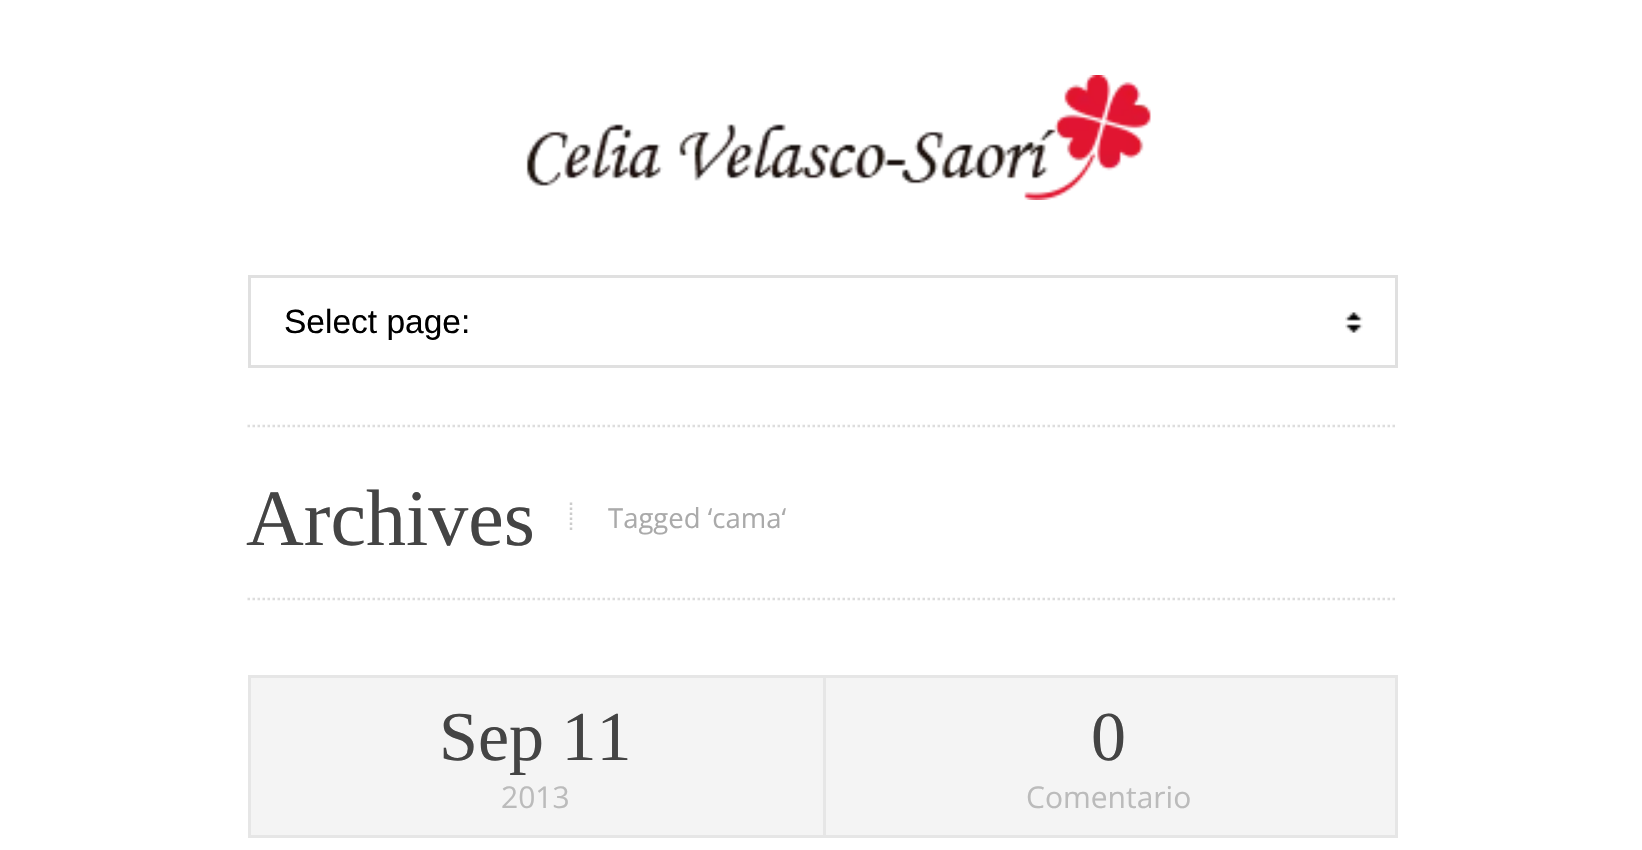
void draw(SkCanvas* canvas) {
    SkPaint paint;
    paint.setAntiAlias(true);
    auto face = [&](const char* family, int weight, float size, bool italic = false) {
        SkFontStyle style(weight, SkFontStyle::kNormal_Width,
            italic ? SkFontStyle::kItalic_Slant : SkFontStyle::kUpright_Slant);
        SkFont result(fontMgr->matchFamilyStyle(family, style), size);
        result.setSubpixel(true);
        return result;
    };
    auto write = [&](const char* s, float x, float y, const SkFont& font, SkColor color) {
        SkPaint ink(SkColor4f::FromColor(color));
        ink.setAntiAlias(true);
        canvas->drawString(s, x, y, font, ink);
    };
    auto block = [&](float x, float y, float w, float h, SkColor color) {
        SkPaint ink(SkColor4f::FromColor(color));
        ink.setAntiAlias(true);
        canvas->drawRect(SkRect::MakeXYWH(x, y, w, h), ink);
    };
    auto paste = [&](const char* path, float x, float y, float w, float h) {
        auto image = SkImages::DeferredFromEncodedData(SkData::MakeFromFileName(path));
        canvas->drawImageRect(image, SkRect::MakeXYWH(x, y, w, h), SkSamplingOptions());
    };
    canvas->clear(SK_ColorWHITE);
    paint.setStyle(SkPaint::kStroke_Style);
    paint.setStrokeWidth(2.5f);
    paint.setColor(SkColorSetRGB(221, 221, 221));
    paint.setPathEffect(SkDashPathEffect::Make({{2.5f, 2.5f}}, 0));
    canvas->drawPath(SkPathBuilder().moveTo(247.5f, 426).lineTo(1397.5f, 426).detach(), paint);
    paint.setPathEffect(nullptr);
    paste("pic1.png", 526, 75, 625, 125);
    paste("pic2.png", 1345, 312, 18, 21);
    paint.setStrokeWidth(3);
    paint.setColor(SkColorSetRGB(224, 224, 224));
    canvas->drawRect(SkRect::MakeXYWH(249.5f, 276.5f, 1147, 90), paint);
    auto kFont1 = face("Liberation Sans", 400, 33.5f);
    write("Select page:", 284, 333, kFont1, SK_ColorBLACK);
    paint.setStrokeWidth(2.5f);
    paint.setColor(SkColorSetRGB(221, 221, 221));
    paint.setPathEffect(SkDashPathEffect::Make({{2.5f, 2.5f}}, 0));
    canvas->drawPath(SkPathBuilder().moveTo(247.5f, 599).lineTo(1397.5f, 599).detach(), paint);
    paint.setPathEffect(nullptr);
    auto kFont2 = face("Liberation Serif", 400, 80);
    write("Archives", 246, 545, kFont2, SkColorSetRGB(68, 68, 68));
    paint.setColor(SkColorSetRGB(204, 204, 204));
    paint.setPathEffect(SkDashPathEffect::Make({{2.5f, 2.5f}}, 0));
    canvas->drawPath(SkPathBuilder().moveTo(571, 502.5f).lineTo(571, 530).detach(), paint);
    paint.setPathEffect(nullptr);
    auto kFont3 = face("Open Sans", 400, 27.5f);
    write("Tagged ‘cama‘", 608, 528, kFont3, SkColorSetRGB(170, 170, 170));
    block(251, 678, 572, 157, SkColorSetRGB(244, 244, 244));
    block(248, 675, 575, 3, SkColorSetRGB(230, 230, 230));
    block(248, 835, 575, 3, SkColorSetRGB(230, 230, 230));
    block(248, 675, 3, 163, SkColorSetRGB(230, 230, 230));
    auto kFont4 = face("Liberation Serif", 400, 70);
    write("Sep 11", 439, 760, kFont4, SkColorSetRGB(68, 68, 68));
    auto kFont5 = face("Open Sans", 400, 30);
    write("2013", 501, 808, kFont5, SkColorSetRGB(187, 187, 187));
    paint.setStyle(SkPaint::kFill_Style);
    paint.setColor(SkColorSetRGB(244, 244, 244));
    canvas->drawRect(SkRect::MakeXYWH(824.5f, 676.5f, 572, 160), paint);
    paint.setStyle(SkPaint::kStroke_Style);
    paint.setStrokeWidth(3);
    paint.setColor(SkColorSetRGB(230, 230, 230));
    canvas->drawRect(SkRect::MakeXYWH(824.5f, 676.5f, 572, 160), paint);
    write("0", 1091, 760, kFont4, SkColorSetRGB(68, 68, 68));
    write("Comentario", 1026, 808, kFont5, SkColorSetRGB(187, 187, 187));
}
